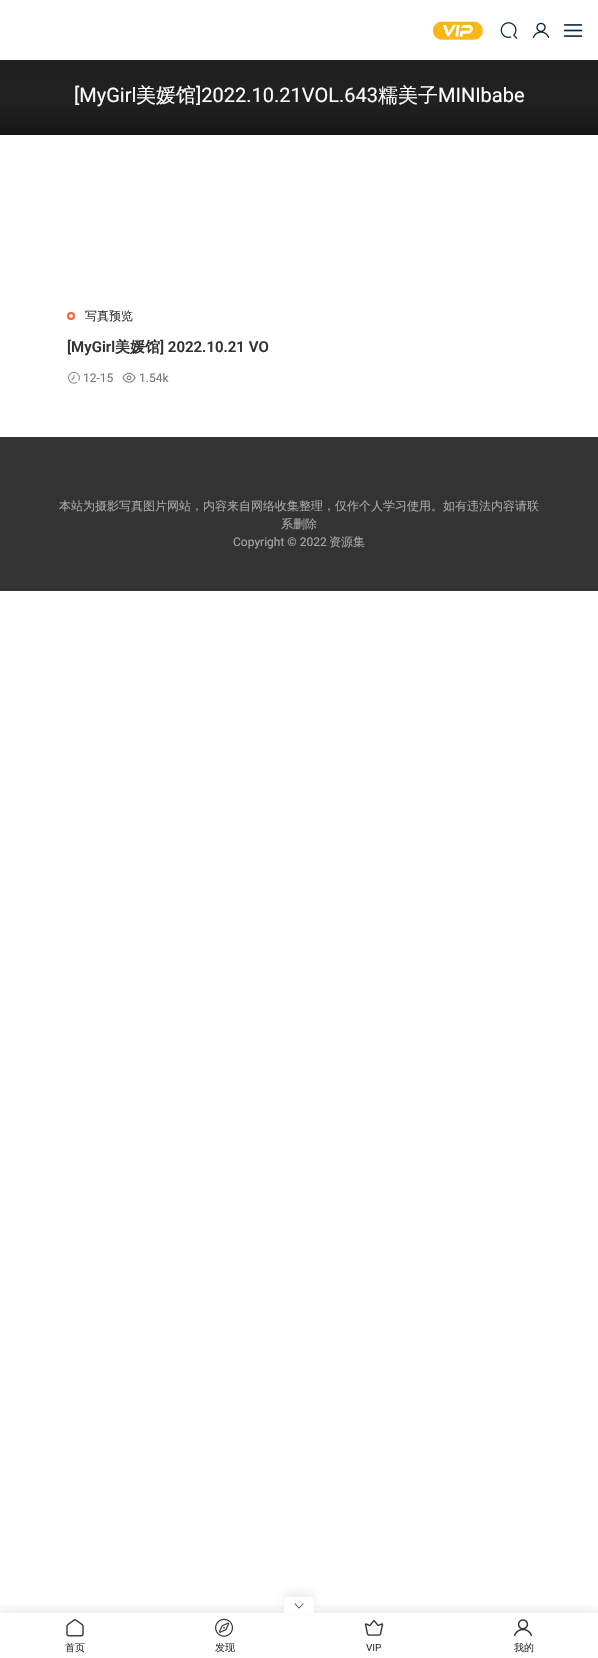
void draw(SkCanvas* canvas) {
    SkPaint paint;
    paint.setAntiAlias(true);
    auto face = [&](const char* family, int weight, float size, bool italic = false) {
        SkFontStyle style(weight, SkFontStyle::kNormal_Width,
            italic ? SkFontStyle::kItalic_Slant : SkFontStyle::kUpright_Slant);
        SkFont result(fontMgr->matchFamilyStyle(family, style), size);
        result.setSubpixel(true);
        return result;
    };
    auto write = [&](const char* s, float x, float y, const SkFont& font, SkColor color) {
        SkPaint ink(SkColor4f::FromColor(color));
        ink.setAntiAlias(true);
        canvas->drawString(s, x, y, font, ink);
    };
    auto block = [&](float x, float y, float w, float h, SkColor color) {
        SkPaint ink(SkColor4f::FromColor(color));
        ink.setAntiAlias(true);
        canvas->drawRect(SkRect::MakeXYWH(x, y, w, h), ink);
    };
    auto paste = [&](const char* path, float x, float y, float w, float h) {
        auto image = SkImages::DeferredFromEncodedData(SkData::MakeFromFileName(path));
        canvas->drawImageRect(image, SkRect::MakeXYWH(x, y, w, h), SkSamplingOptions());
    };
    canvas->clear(SK_ColorWHITE);
    paste("pic1.png", 433, 21, 50, 19);
    paste("pic2.png", 500, 22, 18, 17);
    paste("pic3.png", 532, 22, 18, 16);
    paste("pic4.png", 563, 24, 20, 13);
    {
        const SkColor colors[] = {SkColorSetRGB(32, 32, 32), SkColorSetRGB(32, 32, 32), SkColorSetRGB(33, 33, 33), SkColorSetRGB(33, 33, 33), SkColorSetRGB(32, 32, 32), SkColorSetRGB(31, 31, 31), SkColorSetRGB(30, 30, 30), SkColorSetRGB(30, 30, 30), SkColorSetRGB(29, 29, 29), SkColorSetRGB(28, 28, 28), SkColorSetRGB(27, 27, 27), SkColorSetRGB(26, 26, 26), SkColorSetRGB(25, 25, 25), SkColorSetRGB(24, 24, 24), SkColorSetRGB(23, 23, 23), SkColorSetRGB(23, 23, 23)};
        const float stops[] = {0, 0.28f, 0.31f, 0.56f, 0.59f, 0.63f, 0.66f, 0.7f, 0.73f, 0.77f, 0.8f, 0.84f, 0.87f, 0.91f, 0.94f, 1};
        const SkPoint ends[] = {{299, 60}, {299, 135}};
        paint.setShader(SkGradientShader::MakeLinear(ends, colors, stops, 16, SkTileMode::kClamp));
        paint.setAlpha(255);
    }
    canvas->drawRect(SkRect::MakeXYWH(0, 60, 598, 75), paint);
    auto kFont1 = face("Roboto", 400, 20);
    write("[MyGirl", 74, 102, kFont1, SK_ColorWHITE);
    auto kFont2 = face("WenQuanYi Zen Hei", 500, 20);
    write("美媛馆", 136, 102, kFont2, SK_ColorWHITE);
    write("]2022.10.21VOL.643", 196, 102, kFont1, SK_ColorWHITE);
    write("糯美子", 378, 102, kFont2, SK_ColorWHITE);
    write("MINIbabe", 438, 102, kFont1, SK_ColorWHITE);
    paint.setStyle(SkPaint::kStroke_Style);
    paint.setStrokeWidth(2);
    paint.setShader(nullptr);
    paint.setColor(SkColorSetRGB(255, 95, 51));
    canvas->drawCircle(71, 316, 3, paint);
    auto kFont3 = face("WenQuanYi Zen Hei", 500, 12);
    write("写真预览", 85, 320, kFont3, SkColorSetRGB(51, 51, 51));
    auto kFont4 = face("Roboto", 600, 15);
    write("[MyGirl", 67, 352, kFont4, SkColorSetRGB(51, 51, 51));
    auto kFont5 = face("WenQuanYi Zen Hei", 700, 15);
    write("美媛馆", 115, 352, kFont5, SkColorSetRGB(51, 51, 51));
    write("] 2022.10.21 VO", 160, 352, kFont4, SkColorSetRGB(51, 51, 51));
    paste("pic5.png", 68, 372, 12, 12);
    auto kFont6 = face("Roboto", 400, 12);
    write("12-15", 83, 382, kFont6, SkColorSetRGB(119, 119, 119));
    paste("pic6.png", 122, 372, 14, 11);
    write("1.54k", 139, 382, kFont6, SkColorSetRGB(119, 119, 119));
    block(0, 437, 598, 154, SkColorSetRGB(51, 51, 51));
    write("本站为摄影写真图片网站，内容来自网络收集整理，仅作个人学习使用。如有违法内容请联", 59, 510, kFont3, SkColorSetRGB(167, 167, 167));
    write("系删除", 281, 528, kFont3, SkColorSetRGB(167, 167, 167));
    write("Copyright © 2022", 233, 546, kFont6, SkColorSetRGB(167, 167, 167));
    write("资源集", 329, 546, kFont3, SkColorSetRGB(167, 167, 167));
    canvas->save();
    canvas->clipRect(SkRect::MakeXYWH(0, 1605, 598, 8));
    paint.setStyle(SkPaint::kFill_Style);
    paint.setColor(SkColorSetARGB(26, 17, 58, 93));
    paint.setMaskFilter(SkMaskFilter::MakeBlur(kNormal_SkBlurStyle, 5));
    canvas->drawRect(SkRect::MakeXYWH(0, 1609, 598, 45), paint);
    paint.setMaskFilter(nullptr);
    canvas->restore();
    paint.setMaskFilter(SkMaskFilter::MakeBlur(kNormal_SkBlurStyle, 5));
    canvas->drawRoundRect(SkRect::MakeXYWH(284, 1593, 30, 16), 3, 3, paint);
    paint.setMaskFilter(nullptr);
    paint.setColor(SK_ColorWHITE);
    canvas->drawPath(SkPathBuilder().moveTo(287, 1597).lineTo(311, 1597).cubicTo(312.5f, 1597, 314, 1598.5f, 314, 1600).lineTo(314, 1613).lineTo(284, 1613).lineTo(284, 1600).cubicTo(284, 1598.5f, 285.5f, 1597, 287, 1597).close().detach(), paint);
    paste("pic7.png", 294, 1603, 10, 6);
    paste("pic8.png", 66, 1619, 18, 18);
    auto kFont7 = face("WenQuanYi Zen Hei", 500, 10);
    write("首页", 65, 1651, kFont7, SkColorSetRGB(51, 51, 51));
    paste("pic9.png", 215, 1618, 18, 19);
    write("发现", 215, 1651, kFont7, SkColorSetRGB(51, 51, 51));
    paste("pic10.png", 364, 1620, 20, 16);
    auto kFont8 = face("Roboto", 400, 10);
    write("VIP", 366, 1651, kFont8, SkColorSetRGB(51, 51, 51));
    paste("pic11.png", 514, 1619, 18, 17);
    write("我的", 514, 1651, kFont7, SkColorSetRGB(51, 51, 51));
}
